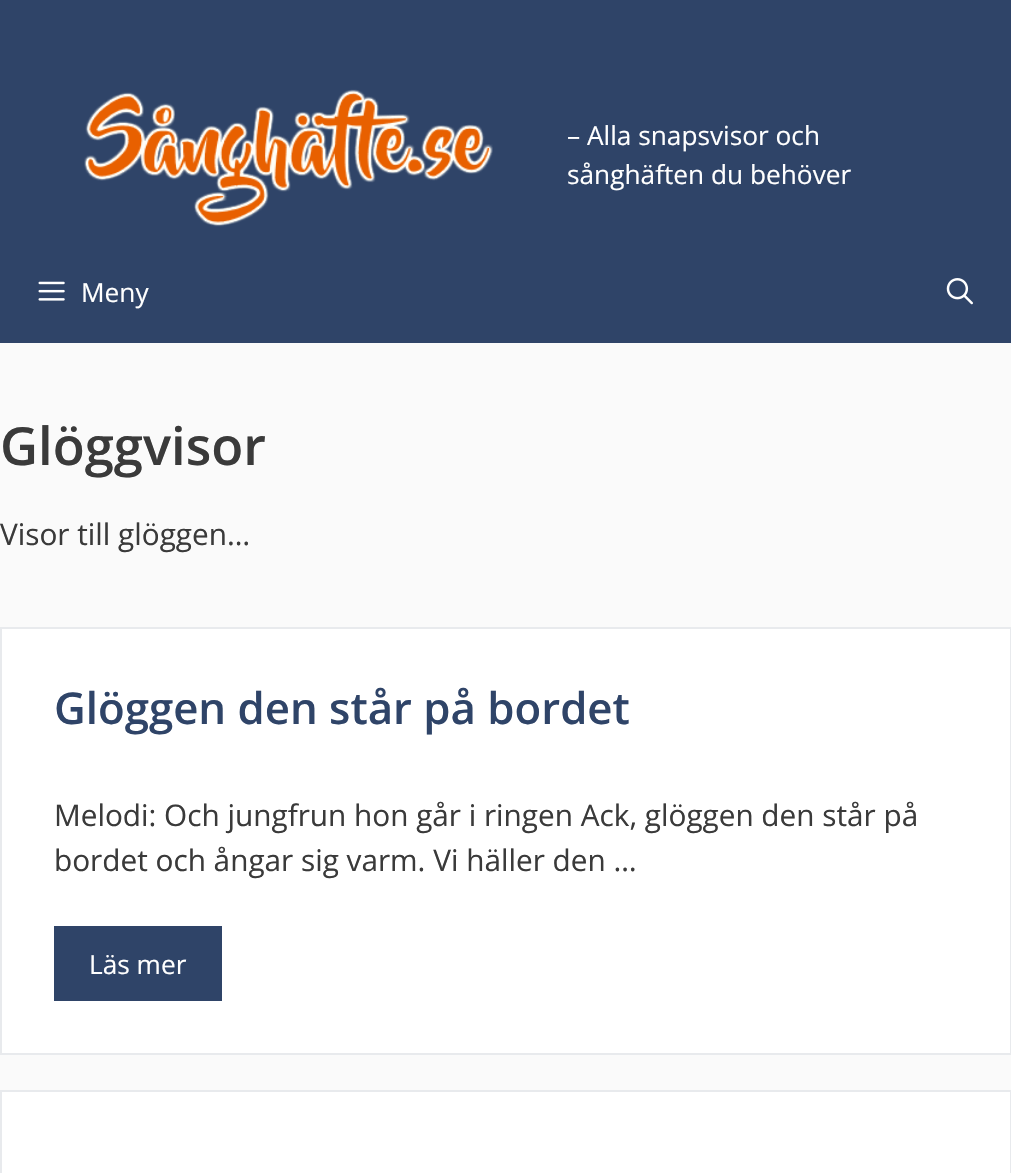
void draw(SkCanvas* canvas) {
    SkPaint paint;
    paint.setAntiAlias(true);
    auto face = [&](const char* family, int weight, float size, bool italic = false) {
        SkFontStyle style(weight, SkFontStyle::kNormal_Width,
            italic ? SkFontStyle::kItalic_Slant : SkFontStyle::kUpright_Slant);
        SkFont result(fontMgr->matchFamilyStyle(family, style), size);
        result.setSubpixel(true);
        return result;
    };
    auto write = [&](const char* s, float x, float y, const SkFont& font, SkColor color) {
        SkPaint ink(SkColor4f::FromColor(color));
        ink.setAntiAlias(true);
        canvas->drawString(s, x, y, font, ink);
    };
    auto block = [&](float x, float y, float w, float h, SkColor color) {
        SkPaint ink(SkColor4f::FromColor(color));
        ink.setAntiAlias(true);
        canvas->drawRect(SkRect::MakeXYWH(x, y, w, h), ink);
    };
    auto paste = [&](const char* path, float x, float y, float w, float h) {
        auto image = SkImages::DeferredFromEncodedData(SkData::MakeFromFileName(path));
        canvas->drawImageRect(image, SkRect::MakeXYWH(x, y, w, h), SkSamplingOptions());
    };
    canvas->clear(SkColorSetRGB(250, 250, 250));
    block(0, 0, 1011, 343, SkColorSetRGB(47, 68, 104));
    paste("pic1.png", 84, 89, 409, 138);
    auto kFont1 = face("Open Sans", 400, 26.25f);
    write("– Alla snapsvisor och", 567, 145, kFont1, SK_ColorWHITE);
    write("sånghäften du behöver", 567, 184, kFont1, SK_ColorWHITE);
    paste("pic2.png", 38, 281, 27, 20);
    write("Meny", 81, 302, kFont1, SK_ColorWHITE);
    paste("pic3.png", 946, 278, 27, 27);
    auto kFont2 = face("Open Sans", 600, 52.5f);
    write("Glöggvisor", 0, 465, kFont2, SkColorSetRGB(58, 58, 58));
    auto kFont3 = face("Open Sans", 400, 29.75f);
    write("Visor till glöggen…", 0, 545, kFont3, SkColorSetRGB(58, 58, 58));
    paint.setColor(SK_ColorWHITE);
    canvas->drawRect(SkRect::MakeXYWH(1, 628, 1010, 426), paint);
    paint.setStyle(SkPaint::kStroke_Style);
    paint.setStrokeWidth(2);
    paint.setColor(SkColorSetRGB(232, 234, 237));
    canvas->drawRect(SkRect::MakeXYWH(1, 628, 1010, 426), paint);
    auto kFont4 = face("Open Sans", 600, 43.75f);
    write("Glöggen den står på bordet", 54, 724, kFont4, SkColorSetRGB(47, 68, 104));
    write("Melodi: Och jungfrun hon går i ringen Ack, glöggen den står på", 54, 826, kFont3, SkColorSetRGB(58, 58, 58));
    write("bordet och ångar sig varm. Vi häller den …", 54, 871, kFont3, SkColorSetRGB(58, 58, 58));
    block(54, 926, 168, 75, SkColorSetRGB(47, 68, 104));
    write("Läs mer", 89, 974, kFont1, SK_ColorWHITE);
    paint.setStyle(SkPaint::kFill_Style);
    paint.setColor(SK_ColorWHITE);
    canvas->drawRect(SkRect::MakeXYWH(1, 1091, 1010, 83), paint);
    paint.setStyle(SkPaint::kStroke_Style);
    paint.setColor(SkColorSetRGB(232, 234, 237));
    canvas->drawRect(SkRect::MakeXYWH(1, 1091, 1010, 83), paint);
}
